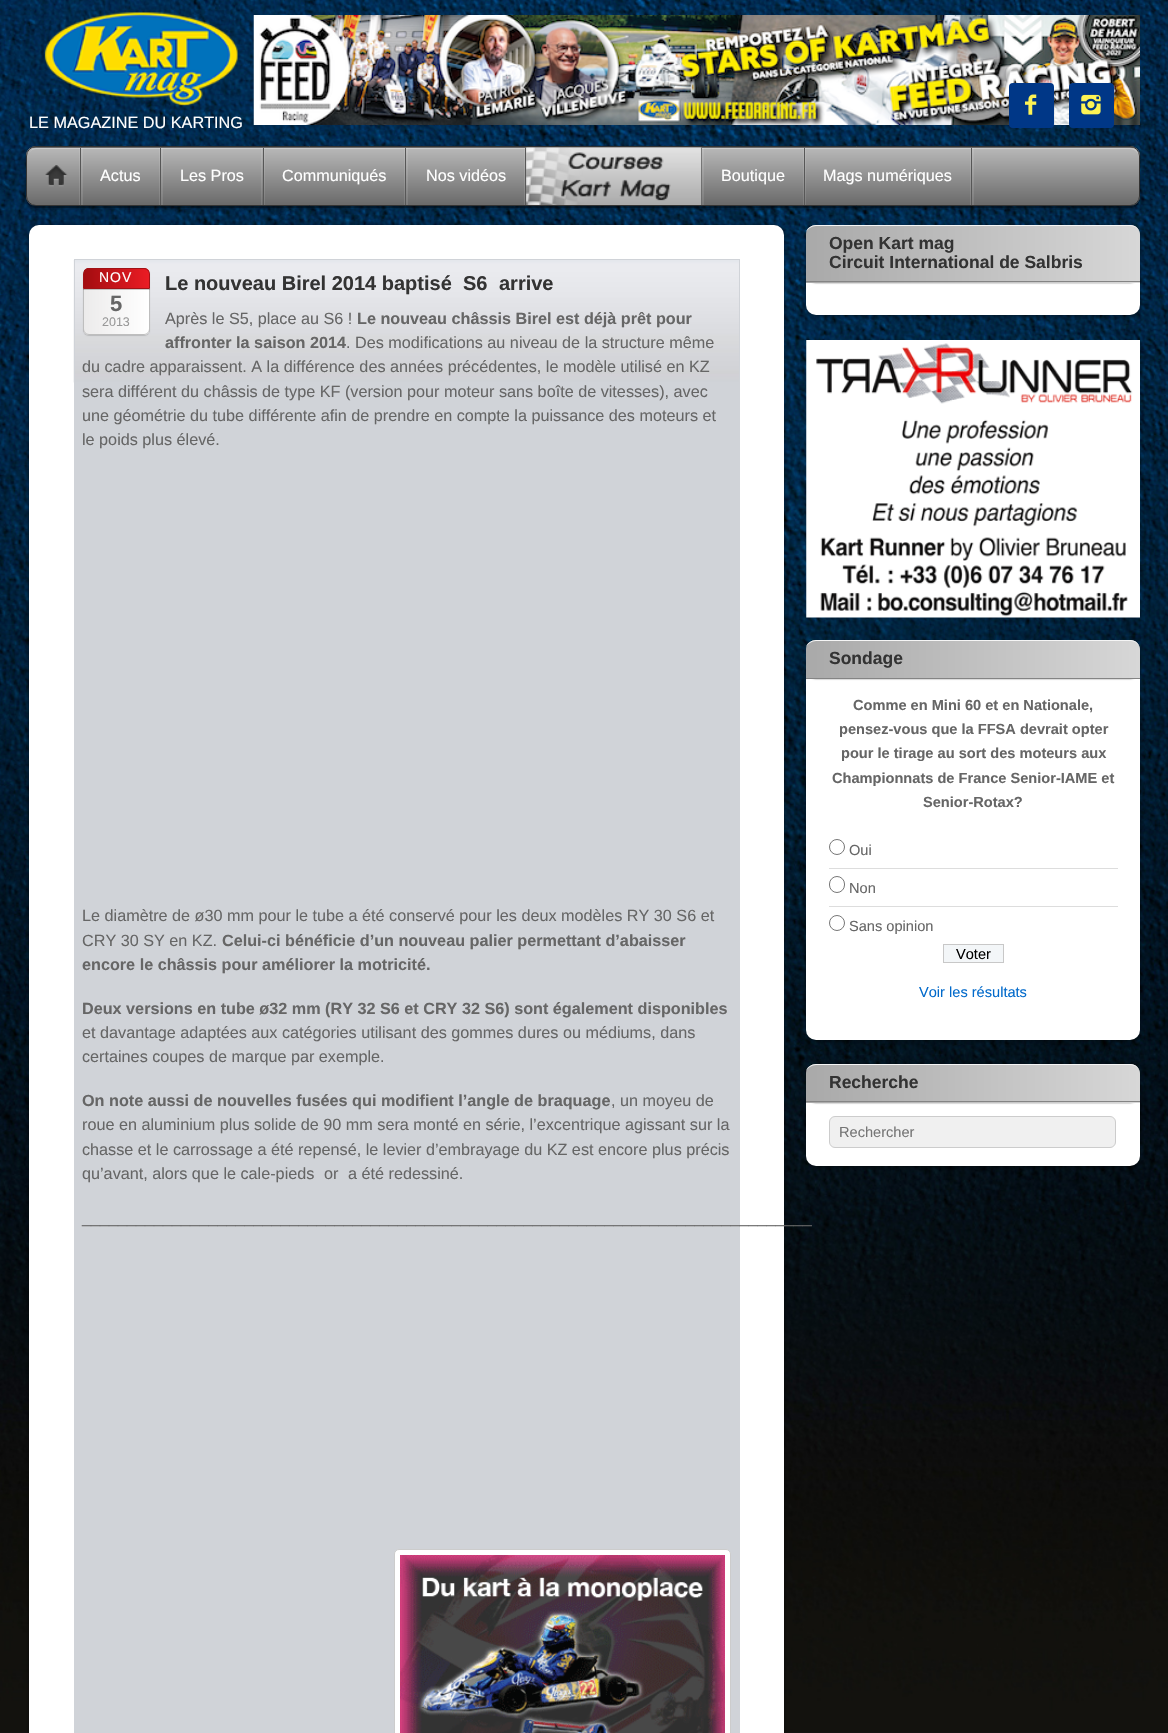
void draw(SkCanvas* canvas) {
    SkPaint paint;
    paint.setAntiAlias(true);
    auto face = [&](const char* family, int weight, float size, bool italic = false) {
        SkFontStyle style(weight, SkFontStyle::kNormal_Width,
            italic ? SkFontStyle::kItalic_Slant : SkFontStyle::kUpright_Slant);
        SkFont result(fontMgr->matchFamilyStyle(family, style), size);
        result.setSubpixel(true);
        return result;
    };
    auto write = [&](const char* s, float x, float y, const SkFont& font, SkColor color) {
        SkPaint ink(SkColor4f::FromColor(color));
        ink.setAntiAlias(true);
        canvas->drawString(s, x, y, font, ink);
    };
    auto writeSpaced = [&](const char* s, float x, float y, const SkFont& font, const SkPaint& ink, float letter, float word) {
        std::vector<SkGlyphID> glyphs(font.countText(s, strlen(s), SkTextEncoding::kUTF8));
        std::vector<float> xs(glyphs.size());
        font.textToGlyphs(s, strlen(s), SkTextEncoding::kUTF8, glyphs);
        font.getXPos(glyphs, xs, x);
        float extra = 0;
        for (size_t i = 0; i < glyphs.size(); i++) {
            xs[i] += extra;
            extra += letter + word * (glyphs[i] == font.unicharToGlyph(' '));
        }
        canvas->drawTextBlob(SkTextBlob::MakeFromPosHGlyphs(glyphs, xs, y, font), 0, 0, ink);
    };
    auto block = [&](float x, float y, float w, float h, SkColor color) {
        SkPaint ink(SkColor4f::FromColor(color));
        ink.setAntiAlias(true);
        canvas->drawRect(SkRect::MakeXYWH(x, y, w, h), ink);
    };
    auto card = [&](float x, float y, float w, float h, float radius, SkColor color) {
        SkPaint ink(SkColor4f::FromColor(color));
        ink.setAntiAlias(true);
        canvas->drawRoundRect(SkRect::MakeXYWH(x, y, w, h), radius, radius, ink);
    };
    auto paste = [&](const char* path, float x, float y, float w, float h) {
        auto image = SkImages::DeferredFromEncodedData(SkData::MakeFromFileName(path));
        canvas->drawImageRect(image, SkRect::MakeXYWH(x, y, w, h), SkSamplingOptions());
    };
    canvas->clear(SkColorSetRGB(21, 20, 18));
    paste("pic1.png", 0, 0, 1168, 1732);
    paste("pic2.png", 44, 12, 194, 94);
    paste("pic3.png", 253, 15, 887, 110);
    auto kFont1 = face("Liberation Sans", 400, 16.25f);
    write("LE MAGAZINE DU KARTING", 29, 128, kFont1, SK_ColorWHITE);
    card(1009, 83, 45, 45, 4, SkColorSetRGB(0, 55, 135));
    paste("pic4.png", 1025, 94, 12, 21);
    card(1069, 83, 45, 45, 4, SkColorSetRGB(0, 55, 135));
    paste("pic5.png", 1081, 94, 20, 21);
    paint.setColor(SkColorSetARGB(77, 0, 0, 0));
    paint.setMaskFilter(SkMaskFilter::MakeBlur(kNormal_SkBlurStyle, 2));
    canvas->drawRoundRect(SkRect::MakeXYWH(26, 148, 1114, 60), 10, 10, paint);
    paint.setMaskFilter(nullptr);
    canvas->drawPath(SkPathBuilder().moveTo(26, 156).lineTo(26, 198).cubicTo(26, 204, 30, 208, 36, 208).lineTo(1130, 208).cubicTo(1136, 208, 1140, 204, 1140, 198).lineTo(1140, 196).cubicTo(1140, 202, 1136, 206, 1130, 206).lineTo(36, 206).cubicTo(31, 206, 26, 202, 26, 196).close().detach(), paint);
    canvas->save();
    canvas->clipPath(SkPathBuilder().moveTo(36, 146).lineTo(1130, 146).cubicTo(1135.5f, 146, 1140, 150.5f, 1140, 156).lineTo(1140, 196).cubicTo(1140, 201.5f, 1135.5f, 206, 1130, 206).lineTo(36, 206).cubicTo(30.5f, 206, 26, 201.5f, 26, 196).lineTo(26, 156).cubicTo(26, 150.5f, 30.5f, 146, 36, 146).close().detach(), true);
    {
        const SkColor colors[] = {SkColorSetRGB(185, 185, 185), SkColorSetRGB(106, 106, 106)};
        const float stops[] = {0, 1};
        const SkPoint ends[] = {{583, 90}, {583, 148}};
        paint.setShader(SkGradientShader::MakeLinear(ends, colors, stops, 2, SkTileMode::kClamp));
        paint.setAlpha(255);
    }
    canvas->drawRect(SkRect::MakeXYWH(26, 146, 1114, 2), paint);
    {
        const SkColor colors[] = {SkColorSetRGB(185, 185, 185), SkColorSetRGB(106, 106, 106)};
        const float stops[] = {0, 1};
        const SkPoint ends[] = {{583, 147}, {583, 205}};
        paint.setShader(SkGradientShader::MakeLinear(ends, colors, stops, 2, SkTileMode::kClamp));
        paint.setAlpha(255);
    }
    canvas->drawRect(SkRect::MakeXYWH(26, 148, 1114, 57), paint);
    canvas->restore();
    paint.setShader(nullptr);
    paint.setColor(SkColorSetARGB(77, 255, 255, 255));
    canvas->drawPath(SkPathBuilder().moveTo(36, 149).lineTo(1130, 149).cubicTo(1135, 149, 1139, 153, 1139, 158).cubicTo(1139, 153, 1136, 148, 1130, 148).lineTo(37, 148).cubicTo(31, 148, 28, 153, 28, 158).cubicTo(28, 153, 31, 149, 36, 149).close().detach(), paint);
    paint.setStyle(SkPaint::kStroke_Style);
    paint.setStrokeWidth(1);
    paint.setColor(SkColorSetRGB(51, 51, 51));
    canvas->drawRoundRect(SkRect::MakeXYWH(26.5f, 146.5f, 1113, 59), 9.5f, 9.5f, paint);
    block(81, 148, 2, 57, SkColorSetARGB(26, 255, 255, 255));
    block(79, 148, 1, 57, SkColorSetARGB(26, 255, 255, 255));
    block(80, 148, 1, 57, SkColorSetRGB(87, 87, 87));
    paste("pic6.png", 45, 165, 23, 22);
    block(161, 148, 2, 57, SkColorSetARGB(26, 255, 255, 255));
    block(159, 148, 1, 57, SkColorSetARGB(26, 255, 255, 255));
    block(160, 148, 1, 57, SkColorSetRGB(87, 87, 87));
    auto kFont2 = face("Liberation Sans", 400, 16.2f);
    write("Actus", 100, 181, kFont2, SK_ColorWHITE);
    block(264, 148, 1, 57, SkColorSetARGB(26, 255, 255, 255));
    block(261, 148, 1, 57, SkColorSetARGB(26, 255, 255, 255));
    block(263, 148, 1, 57, SkColorSetRGB(87, 87, 87));
    write("Les Pros", 180, 181, kFont2, SK_ColorWHITE);
    block(406, 148, 2, 57, SkColorSetARGB(26, 255, 255, 255));
    block(404, 148, 1, 57, SkColorSetARGB(26, 255, 255, 255));
    block(405, 148, 1, 57, SkColorSetRGB(87, 87, 87));
    write("Communiqués", 282, 181, kFont2, SK_ColorWHITE);
    block(524, 148, 1, 57, SkColorSetARGB(26, 255, 255, 255));
    block(525, 148, 1, 57, SkColorSetRGB(87, 87, 87));
    write("Nos vidéos", 426, 181, kFont2, SK_ColorWHITE);
    block(702, 148, 2, 57, SkColorSetARGB(26, 255, 255, 255));
    block(701, 148, 1, 57, SkColorSetRGB(87, 87, 87));
    paste("pic7.png", 526, 147, 176, 58);
    block(805, 148, 1, 57, SkColorSetARGB(26, 255, 255, 255));
    block(803, 148, 1, 57, SkColorSetARGB(26, 255, 255, 255));
    block(804, 148, 1, 57, SkColorSetRGB(87, 87, 87));
    write("Boutique", 721, 181, kFont2, SK_ColorWHITE);
    block(972, 148, 2, 57, SkColorSetARGB(26, 255, 255, 255));
    block(970, 148, 1, 57, SkColorSetARGB(26, 255, 255, 255));
    block(971, 148, 1, 57, SkColorSetRGB(87, 87, 87));
    write("Mags numériques", 823, 181, kFont2, SK_ColorWHITE);
    paint.setStyle(SkPaint::kFill_Style);
    paint.setColor(SkColorSetARGB(102, 0, 0, 0));
    paint.setMaskFilter(SkMaskFilter::MakeBlur(kNormal_SkBlurStyle, 2));
    canvas->drawRoundRect(SkRect::MakeXYWH(29, 226, 755, 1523), 10, 10, paint);
    paint.setMaskFilter(nullptr);
    card(29, 225, 755, 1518, 10, SK_ColorWHITE);
    block(75, 382, 664, 1351, SkColorSetRGB(208, 211, 216));
    paste("pic8.png", 73, 260, 666, 123);
    paint.setStyle(SkPaint::kStroke_Style);
    paint.setColor(SkColorSetRGB(208, 211, 216));
    canvas->drawRect(SkRect::MakeXYWH(74.5f, 259.5f, 665, 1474), paint);
    paint.setStyle(SkPaint::kFill_Style);
    paint.setColor(SkColorSetARGB(38, 0, 0, 0));
    paint.setMaskFilter(SkMaskFilter::MakeBlur(kNormal_SkBlurStyle, 0.5f));
    canvas->drawRoundRect(SkRect::MakeXYWH(83, 269, 67, 67), 6, 6, paint);
    paint.setMaskFilter(nullptr);
    canvas->save();
    canvas->clipPath(SkPathBuilder().moveTo(89, 268).lineTo(144, 268).cubicTo(147.5f, 268, 150, 270.5f, 150, 274).lineTo(150, 329).cubicTo(150, 332.5f, 147.5f, 335, 144, 335).lineTo(89, 335).cubicTo(85.5f, 335, 83, 332.5f, 83, 329).lineTo(83, 274).cubicTo(83, 270.5f, 85.5f, 268, 89, 268).close().detach(), true);
    {
        const SkColor colors[] = {SK_ColorWHITE, SkColorSetRGB(236, 235, 235)};
        const float stops[] = {0, 1};
        const SkPoint ends[] = {{149, 301}, {84, 301}};
        paint.setShader(SkGradientShader::MakeLinear(ends, colors, stops, 2, SkTileMode::kClamp));
        paint.setAlpha(255);
    }
    canvas->drawRect(SkRect::MakeXYWH(84, 268, 65, 67), paint);
    canvas->restore();
    paint.setStyle(SkPaint::kStroke_Style);
    paint.setShader(nullptr);
    paint.setColor(SkColorSetRGB(190, 190, 190));
    canvas->drawRoundRect(SkRect::MakeXYWH(83.5f, 268.5f, 66, 66), 5.5f, 5.5f, paint);
    block(83, 289, 67, 1, SkColorSetARGB(51, 0, 0, 0));
    canvas->save();
    canvas->clipPath(SkPathBuilder().moveTo(89, 268).lineTo(144, 268).cubicTo(147.5f, 268, 150, 270.5f, 150, 274).lineTo(150, 289).lineTo(83, 289).lineTo(83, 274).cubicTo(83, 270.5f, 85.5f, 268, 89, 268).close().detach(), true);
    paint.setStyle(SkPaint::kFill_Style);
    {
        const SkColor colors[] = {SkColorSetRGB(235, 28, 36), SkColorSetRGB(163, 12, 16)};
        const float stops[] = {0, 1};
        const SkPoint ends[] = {{149, 278}, {84, 278}};
        paint.setShader(SkGradientShader::MakeLinear(ends, colors, stops, 2, SkTileMode::kClamp));
        paint.setAlpha(255);
    }
    canvas->drawRect(SkRect::MakeXYWH(84, 268, 65, 20), paint);
    canvas->restore();
    paint.setStyle(SkPaint::kStroke_Style);
    paint.setShader(nullptr);
    paint.setColor(SkColorSetRGB(161, 18, 22));
    canvas->drawPath(SkPathBuilder().moveTo(89, 268.5f).lineTo(144, 268.5f).cubicTo(147, 268.5f, 149.5f, 271, 149.5f, 274).lineTo(149.5f, 288.5f).lineTo(83.5f, 288.5f).lineTo(83.5f, 274).cubicTo(83.5f, 271, 86, 268.5f, 89, 268.5f).close().detach(), paint);
    auto kFont3 = face("Liberation Sans", 400, 14);
    paint.setStyle(SkPaint::kFill_Style);
    paint.setColor(SK_ColorWHITE);
    writeSpaced("NOV", 99, 282, kFont3, paint, 1, 0);
    auto kFont4 = face("Liberation Sans", 700, 22);
    write("5", 110, 311, kFont4, SkColorSetRGB(102, 102, 102));
    auto kFont5 = face("Liberation Sans", 400, 12.5f);
    write("2013", 102, 326, kFont5, SkColorSetRGB(153, 153, 153));
    auto kFont6 = face("Liberation Sans", 700, 20);
    write("Le nouveau Birel 2014 baptisé", 165, 290, kFont6, SkColorSetRGB(51, 51, 51));
    write("S6", 463, 290, kFont6, SkColorSetRGB(51, 51, 51));
    write("arrive", 499, 290, kFont6, SkColorSetRGB(51, 51, 51));
    write("Après le S5, place au S6 !", 165, 324, kFont2, SkColorSetRGB(102, 102, 102));
    auto kFont7 = face("Liberation Sans", 700, 16.2f);
    write("Le nouveau châssis Birel est déjà prêt pour", 357, 324, kFont7, SkColorSetRGB(102, 102, 102));
    write("affronter la saison 2014", 165, 348, kFont7, SkColorSetRGB(102, 102, 102));
    write(". Des modifications au niveau de la structure même", 346, 348, kFont2, SkColorSetRGB(102, 102, 102));
    write("du cadre apparaissent. A la différence des années précédentes, le modèle utilisé en KZ", 82, 372, kFont2, SkColorSetRGB(102, 102, 102));
    write("sera différent du châssis de type KF (version pour moteur sans boîte de vitesses), avec", 82, 397, kFont2, SkColorSetRGB(102, 102, 102));
    write("une géométrie du tube différente afin de prendre en compte la puissance des moteurs et", 82, 421, kFont2, SkColorSetRGB(102, 102, 102));
    write("le poids plus élevé.", 82, 445, kFont2, SkColorSetRGB(102, 102, 102));
    write("Le diamètre de ø30 mm pour le tube a été conservé pour les deux modèles RY 30 S6 et", 82, 921, kFont2, SkColorSetRGB(102, 102, 102));
    write("CRY 30 SY en KZ.", 82, 946, kFont2, SkColorSetRGB(102, 102, 102));
    write("Celui-ci bénéficie d’un nouveau palier permettant d’abaisser", 222, 946, kFont7, SkColorSetRGB(102, 102, 102));
    write("encore le châssis pour améliorer la motricité.", 82, 970, kFont7, SkColorSetRGB(102, 102, 102));
    write("Deux versions en tube ø32 mm (RY 32 S6 et CRY 32 S6) sont également disponibles", 82, 1014, kFont7, SkColorSetRGB(102, 102, 102));
    write("et davantage adaptées aux catégories utilisant des gommes dures ou médiums, dans", 82, 1038, kFont2, SkColorSetRGB(102, 102, 102));
    write("certaines coupes de marque par exemple.", 82, 1062, kFont2, SkColorSetRGB(102, 102, 102));
    write("On note aussi de nouvelles fusées qui modifient l’angle de braquage", 82, 1106, kFont7, SkColorSetRGB(102, 102, 102));
    write(", un moyeu de", 611, 1106, kFont2, SkColorSetRGB(102, 102, 102));
    write("roue en aluminium plus solide de 90 mm sera monté en série, l’excentrique agissant sur la", 82, 1130, kFont2, SkColorSetRGB(102, 102, 102));
    write("chasse et le carrossage a été repensé, le levier d’embrayage du KZ est encore plus précis", 82, 1155, kFont2, SkColorSetRGB(102, 102, 102));
    write("qu’avant, alors que le cale-pieds", 82, 1179, kFont2, SkColorSetRGB(102, 102, 102));
    write("or", 324, 1179, kFont2, SkColorSetRGB(102, 102, 102));
    write("a été redessiné.", 348, 1179, kFont2, SkColorSetRGB(102, 102, 102));
    write("_________________________________________________________________________________", 82, 1223, kFont2, SkColorSetRGB(102, 102, 102));
    canvas->drawRoundRect(SkRect::MakeXYWH(394.5f, 1549.5f, 336, 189), 4.5f, 4.5f, paint);
    paint.setStyle(SkPaint::kStroke_Style);
    paint.setColor(SkColorSetRGB(204, 204, 204));
    canvas->drawRoundRect(SkRect::MakeXYWH(394.5f, 1549.5f, 336, 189), 4.5f, 4.5f, paint);
    paste("pic9.png", 400, 1555, 325, 178);
    paint.setStyle(SkPaint::kFill_Style);
    paint.setColor(SkColorSetARGB(102, 0, 0, 0));
    paint.setMaskFilter(SkMaskFilter::MakeBlur(kNormal_SkBlurStyle, 2));
    canvas->drawRoundRect(SkRect::MakeXYWH(806, 228, 334, 88), 10, 10, paint);
    paint.setMaskFilter(nullptr);
    card(806, 226, 334, 89, 10, SK_ColorWHITE);
    paint.setColor(SkColorSetARGB(38, 0, 0, 0));
    paint.setMaskFilter(SkMaskFilter::MakeBlur(kNormal_SkBlurStyle, 0.5f));
    canvas->drawRoundRect(SkRect::MakeXYWH(806, 226, 334, 58), 10, 10, paint);
    paint.setMaskFilter(nullptr);
    {
        const SkColor colors[] = {SkColorSetRGB(215, 215, 215), SkColorSetRGB(169, 169, 169)};
        const float stops[] = {0, 1};
        const SkPoint ends[] = {{1140, 254}, {806, 254}};
        paint.setShader(SkGradientShader::MakeLinear(ends, colors, stops, 2, SkTileMode::kClamp));
        paint.setAlpha(255);
    }
    canvas->drawPath(SkPathBuilder().moveTo(816, 225).lineTo(1130, 225).cubicTo(1135.5f, 225, 1140, 229.5f, 1140, 235).lineTo(1140, 283).lineTo(806, 283).lineTo(806, 235).cubicTo(806, 229.5f, 810.5f, 225, 816, 225).close().detach(), paint);
    paint.setShader(nullptr);
    paint.setColor(SkColorSetRGB(245, 245, 245));
    canvas->drawPath(SkPathBuilder().moveTo(816, 225).cubicTo(812, 225, 806, 228, 806, 233).cubicTo(807, 229, 812, 226, 816, 226).lineTo(1130, 226).cubicTo(1136, 226, 1140, 230, 1140, 235).cubicTo(1140, 229, 1136, 225, 1130, 225).close().detach(), paint);
    block(806, 281, 334, 1, SkColorSetRGB(132, 132, 132));
    auto kFont8 = face("Liberation Sans", 700, 17.5f);
    write("Open Kart mag", 829, 249, kFont8, SkColorSetRGB(51, 51, 51));
    write("Circuit International de Salbris", 829, 268, kFont8, SkColorSetRGB(51, 51, 51));
    paste("pic10.png", 806, 340, 334, 278);
    paint.setColor(SkColorSetARGB(102, 0, 0, 0));
    paint.setMaskFilter(SkMaskFilter::MakeBlur(kNormal_SkBlurStyle, 2));
    canvas->drawRoundRect(SkRect::MakeXYWH(806, 643, 334, 398), 10, 10, paint);
    paint.setMaskFilter(nullptr);
    card(806, 641, 334, 399, 10, SK_ColorWHITE);
    paint.setColor(SkColorSetARGB(38, 0, 0, 0));
    paint.setMaskFilter(SkMaskFilter::MakeBlur(kNormal_SkBlurStyle, 0.5f));
    canvas->drawRoundRect(SkRect::MakeXYWH(806, 641, 334, 39), 10, 10, paint);
    paint.setMaskFilter(nullptr);
    {
        const SkColor colors[] = {SkColorSetRGB(215, 215, 215), SkColorSetRGB(169, 169, 169)};
        const float stops[] = {0, 1};
        const SkPoint ends[] = {{1140, 659}, {806, 659}};
        paint.setShader(SkGradientShader::MakeLinear(ends, colors, stops, 2, SkTileMode::kClamp));
        paint.setAlpha(255);
    }
    canvas->drawPath(SkPathBuilder().moveTo(816, 640).lineTo(1130, 640).cubicTo(1135.5f, 640, 1140, 644.5f, 1140, 650).lineTo(1140, 679).lineTo(806, 679).lineTo(806, 650).cubicTo(806, 644.5f, 810.5f, 640, 816, 640).close().detach(), paint);
    paint.setShader(nullptr);
    paint.setColor(SkColorSetRGB(245, 245, 245));
    canvas->drawPath(SkPathBuilder().moveTo(816, 640).cubicTo(812, 640, 806, 643, 806, 648).cubicTo(807, 644, 812, 641, 816, 641).lineTo(1130, 641).cubicTo(1136, 641, 1140, 645, 1140, 650).cubicTo(1140, 644, 1136, 640, 1130, 640).close().detach(), paint);
    block(806, 678, 334, 1, SkColorSetRGB(132, 132, 132));
    write("Sondage", 829, 664, kFont8, SkColorSetRGB(51, 51, 51));
    auto kFont9 = face("Liberation Sans", 700, 14.6f);
    write("Comme en Mini 60 et en Nationale,", 853, 710, kFont9, SkColorSetRGB(102, 102, 102));
    write("pensez-vous que la FFSA devrait opter", 839, 734, kFont9, SkColorSetRGB(102, 102, 102));
    write("pour le tirage au sort des moteurs aux", 841, 758, kFont9, SkColorSetRGB(102, 102, 102));
    write("Championnats de France Senior-IAME et", 832, 783, kFont9, SkColorSetRGB(102, 102, 102));
    write("Senior-Rotax?", 923, 807, kFont9, SkColorSetRGB(102, 102, 102));
    block(829, 868, 289, 1, SkColorSetRGB(221, 221, 221));
    paint.setStyle(SkPaint::kStroke_Style);
    paint.setColor(SkColorSetRGB(118, 118, 118));
    canvas->drawCircle(837, 847, 7.5f, paint);
    auto kFont10 = face("Liberation Sans", 400, 14.6f);
    write("Oui", 849, 855, kFont10, SkColorSetRGB(102, 102, 102));
    block(829, 906, 289, 1, SkColorSetRGB(221, 221, 221));
    canvas->drawRoundRect(SkRect::MakeXYWH(829.5f, 876.5f, 15, 16), 7.5f, 7.5f, paint);
    write("Non", 849, 893, kFont10, SkColorSetRGB(102, 102, 102));
    canvas->drawCircle(837, 923, 7.5f, paint);
    write("Sans opinion", 849, 931, kFont10, SkColorSetRGB(102, 102, 102));
    paint.setStyle(SkPaint::kFill_Style);
    paint.setColor(SkColorSetRGB(243, 246, 248));
    canvas->drawRect(SkRect::MakeXYWH(943.5f, 944.5f, 60, 18), paint);
    paint.setStyle(SkPaint::kStroke_Style);
    paint.setColor(SkColorSetRGB(200, 200, 200));
    canvas->drawRect(SkRect::MakeXYWH(943.5f, 944.5f, 60, 18), paint);
    write("Voter", 956, 959, kFont10, SK_ColorBLACK);
    write("Voir les résultats", 919, 997, kFont10, SkColorSetRGB(2, 106, 203));
    paint.setStyle(SkPaint::kFill_Style);
    paint.setColor(SkColorSetARGB(102, 0, 0, 0));
    paint.setMaskFilter(SkMaskFilter::MakeBlur(kNormal_SkBlurStyle, 2));
    canvas->drawRoundRect(SkRect::MakeXYWH(806, 1066, 334, 102), 10, 10, paint);
    paint.setMaskFilter(nullptr);
    card(806, 1065, 334, 101, 10, SK_ColorWHITE);
    paint.setColor(SkColorSetARGB(38, 0, 0, 0));
    paint.setMaskFilter(SkMaskFilter::MakeBlur(kNormal_SkBlurStyle, 0.5f));
    canvas->drawRoundRect(SkRect::MakeXYWH(806, 1065, 334, 39), 10, 10, paint);
    paint.setMaskFilter(nullptr);
    {
        const SkColor colors[] = {SkColorSetRGB(215, 215, 215), SkColorSetRGB(169, 169, 169)};
        const float stops[] = {0, 1};
        const SkPoint ends[] = {{1140, 1083}, {806, 1083}};
        paint.setShader(SkGradientShader::MakeLinear(ends, colors, stops, 2, SkTileMode::kClamp));
        paint.setAlpha(255);
    }
    canvas->drawPath(SkPathBuilder().moveTo(816, 1064).lineTo(1130, 1064).cubicTo(1135.5f, 1064, 1140, 1068.5f, 1140, 1074).lineTo(1140, 1103).lineTo(806, 1103).lineTo(806, 1074).cubicTo(806, 1068.5f, 810.5f, 1064, 816, 1064).close().detach(), paint);
    paint.setShader(nullptr);
    paint.setColor(SkColorSetRGB(245, 245, 245));
    canvas->drawPath(SkPathBuilder().moveTo(816, 1064).lineTo(1130, 1064).cubicTo(1136, 1064, 1140, 1068, 1140, 1074).cubicTo(1140, 1069, 1136, 1065, 1130, 1065).lineTo(816, 1065).cubicTo(812, 1065, 807, 1068, 806, 1072).cubicTo(806, 1067, 812, 1064, 816, 1064).close().detach(), paint);
    block(806, 1101, 334, 1, SkColorSetRGB(132, 132, 132));
    write("Recherche", 829, 1088, kFont8, SkColorSetRGB(51, 51, 51));
    paint.setColor(SkColorSetRGB(240, 240, 240));
    canvas->drawRoundRect(SkRect::MakeXYWH(829.5f, 1116.5f, 286, 31), 5.5f, 5.5f, paint);
    paint.setStyle(SkPaint::kStroke_Style);
    paint.setColor(SkColorSetRGB(204, 204, 204));
    canvas->drawRoundRect(SkRect::MakeXYWH(829.5f, 1116.5f, 286, 31), 5.5f, 5.5f, paint);
    write("Rechercher", 839, 1137, kFont10, SkColorSetRGB(117, 117, 117));
}
